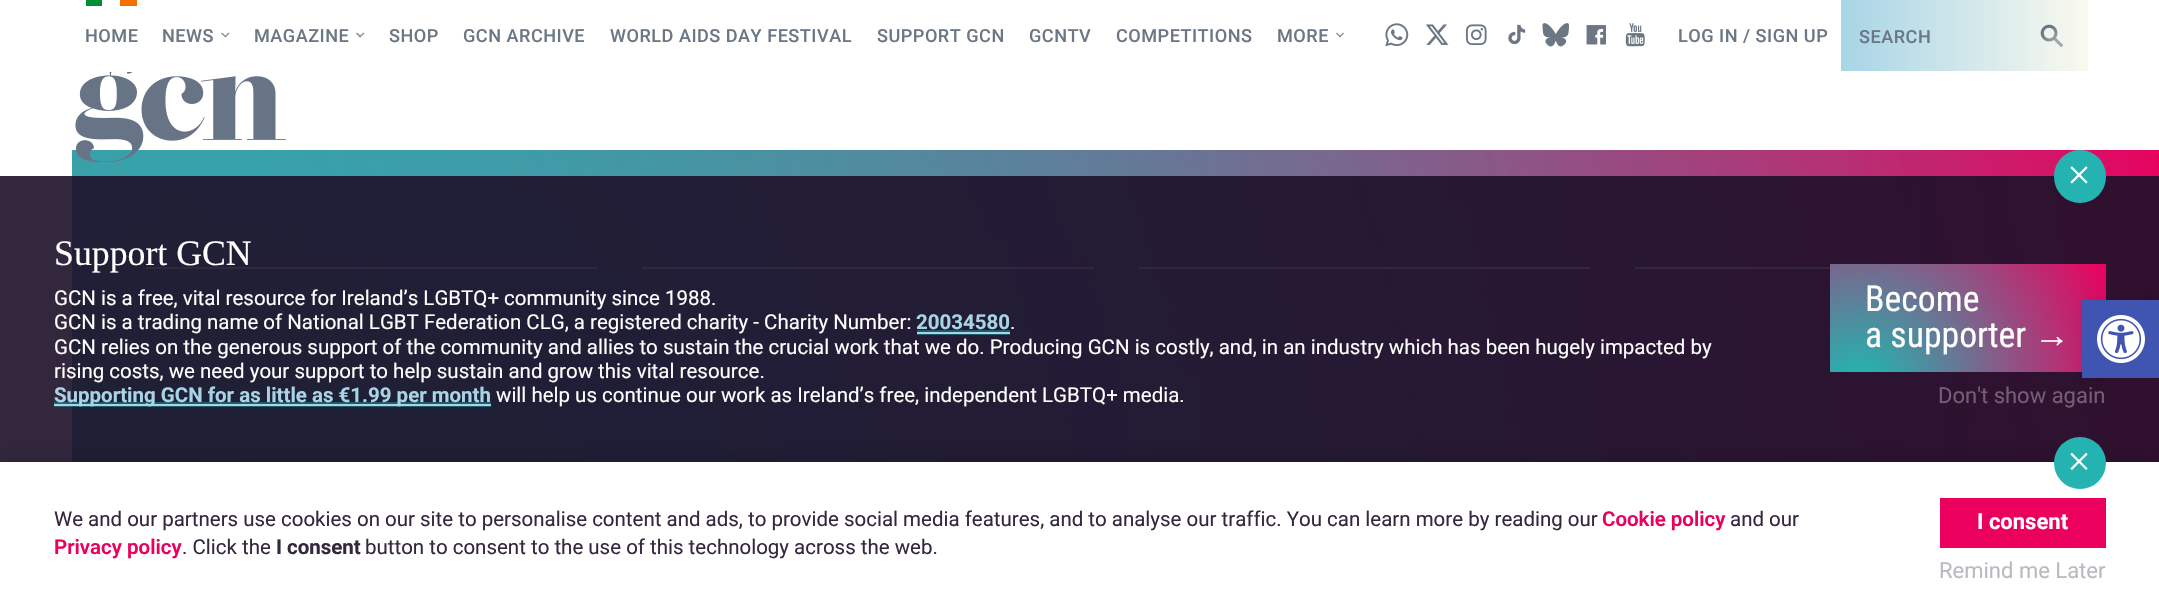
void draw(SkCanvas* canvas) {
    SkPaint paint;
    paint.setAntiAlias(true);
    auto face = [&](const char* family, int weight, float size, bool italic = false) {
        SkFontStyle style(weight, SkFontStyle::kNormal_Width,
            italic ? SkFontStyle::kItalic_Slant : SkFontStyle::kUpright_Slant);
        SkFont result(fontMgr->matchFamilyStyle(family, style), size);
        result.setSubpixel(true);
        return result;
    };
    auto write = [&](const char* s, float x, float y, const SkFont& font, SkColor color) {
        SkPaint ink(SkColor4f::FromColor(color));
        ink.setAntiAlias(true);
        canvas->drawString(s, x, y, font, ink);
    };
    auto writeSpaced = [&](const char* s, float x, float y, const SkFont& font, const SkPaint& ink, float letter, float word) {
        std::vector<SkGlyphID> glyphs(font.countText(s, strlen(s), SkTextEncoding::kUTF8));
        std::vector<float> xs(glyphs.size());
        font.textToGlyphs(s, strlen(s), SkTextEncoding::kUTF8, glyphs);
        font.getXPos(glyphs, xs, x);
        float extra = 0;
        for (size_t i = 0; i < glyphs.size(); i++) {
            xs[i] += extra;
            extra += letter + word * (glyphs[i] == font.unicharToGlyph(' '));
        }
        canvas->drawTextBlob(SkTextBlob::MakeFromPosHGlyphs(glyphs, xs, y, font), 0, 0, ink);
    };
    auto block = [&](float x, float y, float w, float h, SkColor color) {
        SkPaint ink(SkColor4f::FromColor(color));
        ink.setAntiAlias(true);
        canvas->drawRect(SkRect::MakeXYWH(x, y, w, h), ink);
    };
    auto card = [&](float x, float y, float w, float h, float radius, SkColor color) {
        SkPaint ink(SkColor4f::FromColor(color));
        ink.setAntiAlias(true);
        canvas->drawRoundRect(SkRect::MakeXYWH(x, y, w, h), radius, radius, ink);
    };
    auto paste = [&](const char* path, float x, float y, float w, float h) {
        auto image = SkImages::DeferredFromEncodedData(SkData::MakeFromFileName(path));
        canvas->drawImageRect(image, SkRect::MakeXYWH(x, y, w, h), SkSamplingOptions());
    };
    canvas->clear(SK_ColorWHITE);
    block(86, 0, 16, 6, SkColorSetRGB(0, 141, 58));
    block(120, 0, 17, 6, SkColorSetRGB(243, 112, 0));
    auto kFont1 = face("Roboto", 500, 18.1f);
    paint.setColor(SkColorSetRGB(107, 119, 132));
    writeSpaced("HOME", 85, 42, kFont1, paint, 0.5f, 0);
    writeSpaced("NEWS", 162, 42, kFont1, paint, 0.5f, 0);
    paint.setColor(SkColorSetRGB(137, 146, 157));
    canvas->drawPath(SkPathBuilder().moveTo(228.5f, 32.5f).lineTo(229.5f, 33.5f).lineTo(225.5f, 37.5f).lineTo(224.5f, 36.5f).close().detach(), paint);
    canvas->drawPath(SkPathBuilder().moveTo(222, 32.5f).lineTo(226.5f, 36.5f).lineTo(225.5f, 37.5f).lineTo(221, 33.5f).close().detach(), paint);
    paint.setColor(SkColorSetRGB(107, 119, 132));
    writeSpaced("MAGAZINE", 254, 42, kFont1, paint, 0.5f, 0);
    paint.setColor(SkColorSetRGB(137, 146, 157));
    canvas->drawPath(SkPathBuilder().moveTo(363.5f, 32.5f).lineTo(364.5f, 33.5f).lineTo(360, 37.5f).lineTo(359, 36.5f).close().detach(), paint);
    canvas->drawPath(SkPathBuilder().moveTo(357, 32.5f).lineTo(361.5f, 36.5f).lineTo(360, 37.5f).lineTo(356, 33.5f).close().detach(), paint);
    paint.setColor(SkColorSetRGB(107, 119, 132));
    writeSpaced("SHOP", 389, 42, kFont1, paint, 0.5f, 0);
    writeSpaced("GCN ARCHIVE", 463, 42, kFont1, paint, 0.5f, 0);
    writeSpaced("WORLD AIDS DAY FESTIVAL", 610, 42, kFont1, paint, 0.5f, 0);
    writeSpaced("SUPPORT GCN", 877, 42, kFont1, paint, 0.5f, 0);
    writeSpaced("GCNTV", 1029, 42, kFont1, paint, 0.5f, 0);
    writeSpaced("COMPETITIONS", 1116, 42, kFont1, paint, 0.5f, 0);
    writeSpaced("MORE", 1277, 42, kFont1, paint, 0.5f, 0);
    paint.setColor(SkColorSetRGB(137, 146, 157));
    canvas->drawPath(SkPathBuilder().moveTo(1343, 32.5f).lineTo(1344, 33.5f).lineTo(1340, 37.5f).lineTo(1339, 36.5f).close().detach(), paint);
    canvas->drawPath(SkPathBuilder().moveTo(1337, 32.5f).lineTo(1341, 36.5f).lineTo(1340, 37.5f).lineTo(1336, 33.5f).close().detach(), paint);
    paste("pic1.png", 1385, 23, 24, 24);
    paste("pic2.png", 1426, 24, 23, 21);
    paste("pic3.png", 1465, 24, 22, 22);
    paste("pic4.png", 1508, 24, 18, 21);
    paste("pic5.png", 1542, 23, 27, 24);
    paste("pic6.png", 1586, 25, 20, 20);
    paste("pic7.png", 1625, 23, 20, 24);
    paint.setColor(SkColorSetRGB(107, 119, 132));
    writeSpaced("LOG IN / SIGN UP", 1678, 42, kFont1, paint, 0.5f, 0);
    {
        const SkColor colors[] = {SkColorSetRGB(168, 213, 230), SkColorSetRGB(250, 249, 239)};
        const float stops[] = {0, 1};
        const SkPoint ends[] = {{1841, 35}, {2088, 35}};
        paint.setShader(SkGradientShader::MakeLinear(ends, colors, stops, 2, SkTileMode::kClamp));
        paint.setAlpha(255);
    }
    canvas->drawRect(SkRect::MakeXYWH(1841, 0, 247, 71), paint);
    paint.setShader(nullptr);
    paint.setColor(SkColorSetRGB(107, 119, 132));
    writeSpaced("SEARCH", 1859, 43, kFont1, paint, 0.5f, 0);
    paste("pic8.png", 2040, 24, 24, 24);
    {
        const SkColor colors[] = {SkColorSetRGB(36, 179, 176), SkColorSetRGB(235, 0, 94)};
        const float stops[] = {0.05f, 1};
        paint.setShader(SkGradientShader::MakeRadial({289, 786}, 1976, colors, stops, 2, SkTileMode::kClamp));
        paint.setAlpha(255);
    }
    canvas->drawRect(SkRect::MakeXYWH(72, 150, 2087, 312), paint);
    {
        const SkColor colors[] = {SkColorSetARGB(168, 34, 180, 180), SkColorSetARGB(0, 34, 180, 180)};
        const float stops[] = {0, 1};
        paint.setShader(SkGradientShader::MakeRadial({173, 207}, 2049, colors, stops, 2, SkTileMode::kClamp));
        paint.setAlpha(255);
    }
    canvas->drawRect(SkRect::MakeXYWH(72, 150, 2083, 312), paint);
    paste("pic9.png", 75, 72, 211, 90);
    block(146, 267, 451, 2, SK_ColorWHITE);
    block(642, 267, 452, 2, SK_ColorWHITE);
    block(1139, 267, 451, 2, SK_ColorWHITE);
    block(1635, 267, 195, 2, SK_ColorWHITE);
    block(0, 176, 2159, 286, SkColorSetARGB(230, 29, 15, 41));
    card(2054, 150, 52, 53, 26, SkColorSetRGB(36, 179, 176));
    paste("pic10.png", 2070, 166, 18, 18);
    auto kFont2 = face("Liberation Serif", 400, 35.75f);
    write("Support GCN", 54, 265, kFont2, SK_ColorWHITE);
    auto kFont3 = face("Roboto", 400, 20.48f);
    write("GCN is a free, vital resource for Ireland’s LGBTQ+ community since 1988.", 54, 305, kFont3, SK_ColorWHITE);
    write("GCN is a trading name of National LGBT Federation CLG, a registered charity - Charity Number:", 54, 329, kFont3, SK_ColorWHITE);
    auto kFont4 = face("Roboto", 700, 20.48f);
    write("20034580", 916, 329, kFont4, SkColorSetRGB(168, 213, 230));
    block(917, 330, 93, 5, SkColorSetRGB(34, 88, 104));
    block(917, 332, 93, 2, SkColorSetRGB(168, 213, 230));
    write(".", 1010, 329, kFont3, SK_ColorWHITE);
    write("GCN relies on the generous support of the community and allies to sustain the crucial work that we do. Producing GCN is costly, and, in an industry which has been hugely impacted by", 54, 354, kFont3, SK_ColorWHITE);
    write("rising costs, we need your support to help sustain and grow this vital resource.", 54, 378, kFont3, SK_ColorWHITE);
    block(54, 402, 437, 5, SkColorSetARGB(102, 34, 180, 180));
    block(54, 404, 437, 2, SkColorSetRGB(168, 213, 230));
    write("Supporting GCN for as little as €1.99 per month", 54, 402, kFont4, SkColorSetRGB(168, 213, 230));
    write("will help us continue our work as Ireland’s free, independent LGBTQ+ media.", 496, 402, kFont3, SK_ColorWHITE);
    {
        const SkColor colors[] = {SkColorSetRGB(36, 179, 176), SkColorSetRGB(235, 0, 94)};
        const float stops[] = {0.05f, 1};
        paint.setShader(SkGradientShader::MakeRadial({1859, 388}, 276, colors, stops, 2, SkTileMode::kClamp));
        paint.setAlpha(255);
    }
    canvas->drawRect(SkRect::MakeXYWH(1830, 264, 276, 108), paint);
    auto kFont5 = face("Roboto Condensed", 400, 35.75f);
    write("Become", 1865, 311, kFont5, SK_ColorWHITE);
    write("a supporter", 1865, 347, kFont5, SK_ColorWHITE);
    auto kFont6 = face("Liberation Sans", 400, 35.75f);
    write("→", 2034, 347, kFont6, SK_ColorWHITE);
    auto kFont7 = face("Roboto", 400, 22);
    write("Don't show again", 1938, 403, kFont7, SkColorSetRGB(115, 95, 116));
    paint.setShader(nullptr);
    paint.setColor(SkColorSetARGB(38, 0, 0, 0));
    paint.setMaskFilter(SkMaskFilter::MakeBlur(kNormal_SkBlurStyle, 11));
    canvas->drawRect(SkRect::MakeXYWH(0, 459, 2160, 143), paint);
    paint.setMaskFilter(nullptr);
    block(0, 462, 2159, 142, SK_ColorWHITE);
    paint.setColor(SkColorSetRGB(36, 179, 176));
    canvas->drawCircle(2080, 463, 26, paint);
    paste("pic11.png", 2070, 452, 18, 18);
    write("We and our partners use cookies on our site to personalise content and ads, to provide social media features, and to analyse our traffic. You can learn more by reading our", 54, 526, kFont3, SkColorSetRGB(52, 39, 62));
    auto kFont8 = face("Roboto", 600, 20.48f);
    write("Cookie policy", 1602, 526, kFont8, SkColorSetRGB(235, 0, 94));
    write("and our", 1730, 526, kFont3, SkColorSetRGB(52, 39, 62));
    write("Privacy policy", 54, 554, kFont8, SkColorSetRGB(235, 0, 94));
    write(". Click the", 182, 554, kFont3, SkColorSetRGB(52, 39, 62));
    write("I consent", 276, 554, kFont4, SkColorSetRGB(52, 39, 62));
    write("button to consent to the use of this technology across the web.", 365, 554, kFont3, SkColorSetRGB(52, 39, 62));
    block(1940, 498, 166, 50, SkColorSetRGB(235, 0, 94));
    auto kFont9 = face("Roboto", 700, 22);
    write("I consent", 1977, 529, kFont9, SK_ColorWHITE);
    write("Remind me Later", 1939, 578, kFont7, SkColorSetRGB(188, 184, 191));
    paint.setColor(SkColorSetARGB(26, 0, 0, 0));
    paint.setMaskFilter(SkMaskFilter::MakeBlur(kNormal_SkBlurStyle, 7.5f));
    canvas->drawRect(SkRect::MakeXYWH(2082, 300, 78, 78), paint);
    paint.setMaskFilter(nullptr);
    block(2082, 300, 77, 78, SkColorSetRGB(64, 84, 178));
    paste("pic12.png", 2097, 315, 48, 48);
}
